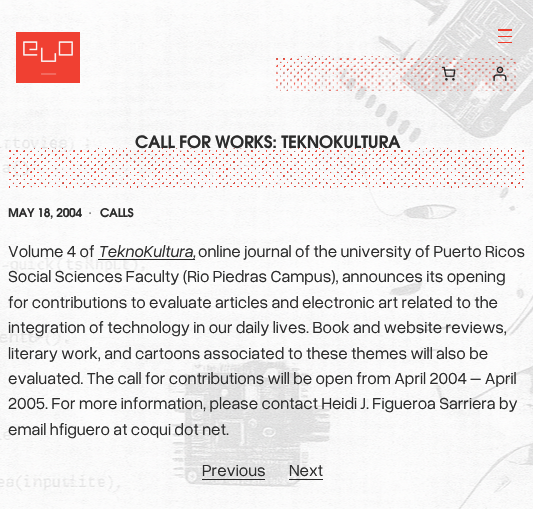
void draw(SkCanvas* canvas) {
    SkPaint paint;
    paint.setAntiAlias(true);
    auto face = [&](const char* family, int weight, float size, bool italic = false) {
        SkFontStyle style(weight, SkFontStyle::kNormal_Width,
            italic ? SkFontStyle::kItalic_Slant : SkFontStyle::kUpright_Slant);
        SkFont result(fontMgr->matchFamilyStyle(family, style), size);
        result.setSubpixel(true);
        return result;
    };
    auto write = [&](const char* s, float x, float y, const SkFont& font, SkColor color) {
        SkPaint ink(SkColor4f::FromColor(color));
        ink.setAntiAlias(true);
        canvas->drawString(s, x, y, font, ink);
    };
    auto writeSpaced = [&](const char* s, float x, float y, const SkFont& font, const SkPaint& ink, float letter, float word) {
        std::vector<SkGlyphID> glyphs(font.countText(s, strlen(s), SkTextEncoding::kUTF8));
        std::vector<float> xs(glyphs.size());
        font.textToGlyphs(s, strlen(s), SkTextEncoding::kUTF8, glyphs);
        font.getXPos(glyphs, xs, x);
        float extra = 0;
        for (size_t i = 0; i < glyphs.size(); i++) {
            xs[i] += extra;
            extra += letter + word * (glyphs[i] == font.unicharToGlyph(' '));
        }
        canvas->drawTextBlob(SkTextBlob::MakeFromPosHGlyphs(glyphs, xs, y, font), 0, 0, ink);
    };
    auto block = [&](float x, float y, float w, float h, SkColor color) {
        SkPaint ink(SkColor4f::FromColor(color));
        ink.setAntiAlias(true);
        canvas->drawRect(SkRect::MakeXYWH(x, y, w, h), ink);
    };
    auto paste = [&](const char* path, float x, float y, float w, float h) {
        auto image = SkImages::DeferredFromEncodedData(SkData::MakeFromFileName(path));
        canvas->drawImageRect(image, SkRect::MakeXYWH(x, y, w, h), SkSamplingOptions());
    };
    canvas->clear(SK_ColorWHITE);
    paste("pic1.png", 0, 0, 533, 509);
    paste("pic2.png", 16, 32, 64, 51);
    block(498, 29, 14, 2, SkColorSetRGB(239, 58, 42));
    block(498, 36, 14, 1, SkColorSetRGB(239, 58, 42));
    block(498, 42, 14, 1, SkColorSetRGB(239, 58, 42));
    paste("pic3.png", 276, 56, 241, 35);
    paste("pic4.png", 441, 66, 15, 15);
    paste("pic5.png", 493, 66, 14, 15);
    auto kFont1 = face("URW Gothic", 700, 17);
    paint.setColor(SkColorSetRGB(44, 44, 44));
    writeSpaced("CALL FOR WORKS: TEKNOKULTURA", 135, 148, kFont1, paint, -0.3f, 0);
    paste("pic6.png", 9, 148, 515, 40);
    auto kFont2 = face("URW Gothic", 700, 12);
    writeSpaced("MAY 18, 2004", 8, 217, kFont2, paint, -0.3f, 0);
    auto kFont3 = face("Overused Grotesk", 400, 12);
    write("·", 89, 217, kFont3, SkColorSetRGB(44, 44, 44));
    writeSpaced("CALLS", 100, 217, kFont2, paint, -0.3f, 0);
    auto kFont4 = face("Overused Grotesk", 400, 17);
    write("Volume 4 of", 8, 257, kFont4, SkColorSetRGB(44, 44, 44));
    block(98, 259, 97, 1, SkColorSetARGB(227, 18, 18, 18));
    auto kFont5 = face("Overused Grotesk", 400, 17, true);
    write("TeknoKultura,", 98, 257, kFont5, SkColorSetRGB(44, 44, 44));
    write("online journal of the university of Puerto Ricos", 198, 257, kFont4, SkColorSetRGB(44, 44, 44));
    write("Social Sciences Faculty (Rio Piedras Campus), announces its opening", 8, 282, kFont4, SkColorSetRGB(44, 44, 44));
    write("for contributions to evaluate articles and electronic art related to the", 8, 308, kFont4, SkColorSetRGB(44, 44, 44));
    write("integration of technology in our daily lives. Book and website reviews,", 8, 333, kFont4, SkColorSetRGB(44, 44, 44));
    write("literary work, and cartoons associated to these themes will also be", 8, 359, kFont4, SkColorSetRGB(44, 44, 44));
    write("evaluated. The call for contributions will be open from April 2004 – April", 8, 384, kFont4, SkColorSetRGB(44, 44, 44));
    write("2005. For more information, please contact Heidi J. Figueroa Sarriera by", 8, 409, kFont4, SkColorSetRGB(44, 44, 44));
    write("email hfiguero at coqui dot net.", 8, 435, kFont4, SkColorSetRGB(44, 44, 44));
    write("Previous", 202, 476, kFont4, SkColorSetRGB(44, 44, 44));
    block(202, 479, 63, 1, SkColorSetARGB(227, 18, 18, 18));
    write("Next", 289, 476, kFont4, SkColorSetRGB(44, 44, 44));
    block(289, 479, 34, 1, SkColorSetARGB(227, 18, 18, 18));
}
